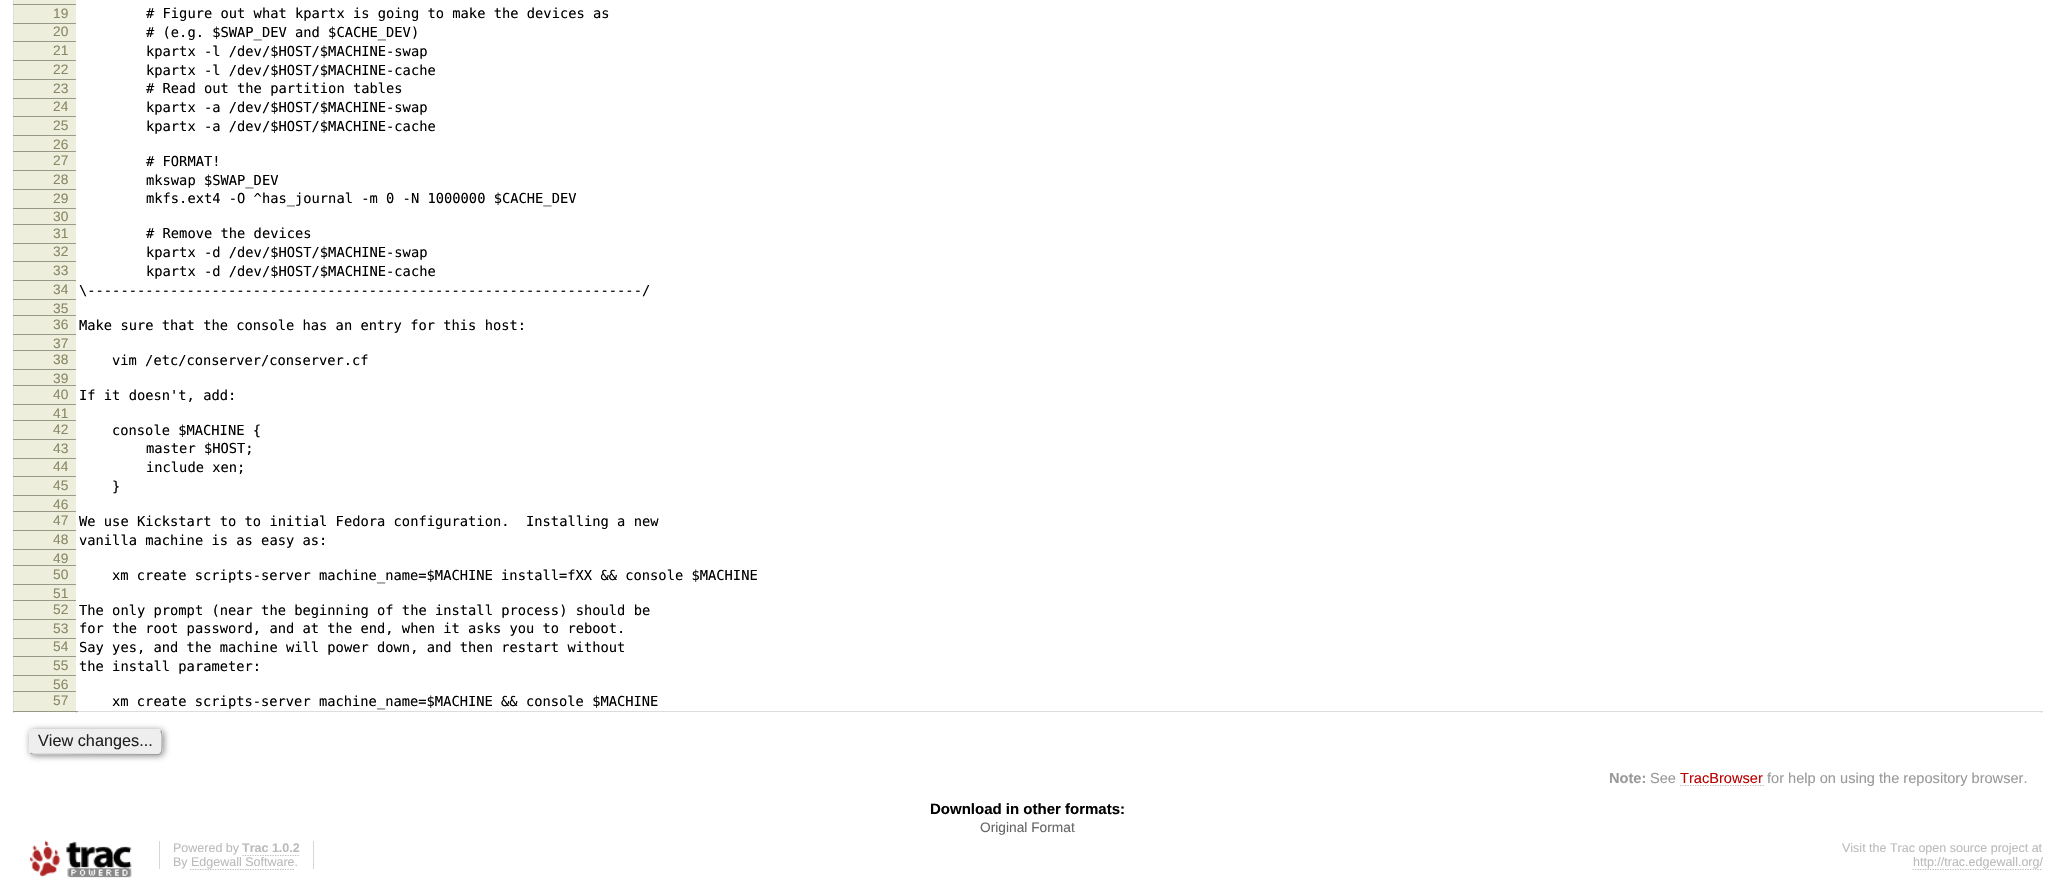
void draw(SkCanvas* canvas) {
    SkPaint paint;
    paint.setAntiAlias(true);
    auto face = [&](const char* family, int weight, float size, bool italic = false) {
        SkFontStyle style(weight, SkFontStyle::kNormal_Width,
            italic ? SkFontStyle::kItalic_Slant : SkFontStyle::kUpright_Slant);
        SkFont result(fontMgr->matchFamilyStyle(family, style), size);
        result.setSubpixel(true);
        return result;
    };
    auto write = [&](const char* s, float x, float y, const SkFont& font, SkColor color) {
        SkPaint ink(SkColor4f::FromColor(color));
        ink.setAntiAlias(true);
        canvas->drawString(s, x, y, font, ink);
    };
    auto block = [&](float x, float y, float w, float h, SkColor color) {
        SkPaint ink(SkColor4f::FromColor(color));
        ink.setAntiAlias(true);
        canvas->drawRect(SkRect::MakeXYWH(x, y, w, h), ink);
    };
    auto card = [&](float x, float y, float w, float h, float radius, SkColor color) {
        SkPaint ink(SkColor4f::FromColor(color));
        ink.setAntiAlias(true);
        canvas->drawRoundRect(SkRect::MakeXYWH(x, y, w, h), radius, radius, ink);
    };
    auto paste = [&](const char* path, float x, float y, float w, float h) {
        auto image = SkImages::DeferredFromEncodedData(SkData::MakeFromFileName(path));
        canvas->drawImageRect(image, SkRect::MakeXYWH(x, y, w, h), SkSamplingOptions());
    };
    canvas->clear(SK_ColorWHITE);
    block(2041, 712, 1, 1, SkColorSetRGB(221, 221, 221));
    block(78, 711, 1965, 1, SkColorSetRGB(221, 221, 221));
    block(13, 0, 1, 713, SkColorSetRGB(221, 221, 221));
    block(14, 0, 62, 4, SkColorSetRGB(238, 238, 221));
    block(13, 4, 65, 1, SkColorSetRGB(153, 153, 136));
    block(76, 4, 2, 1, SK_ColorWHITE);
    block(14, 5, 62, 18, SkColorSetRGB(238, 238, 221));
    block(13, 23, 65, 1, SkColorSetRGB(153, 153, 136));
    auto kFont1 = face("Liberation Sans", 400, 13.75f);
    write("19", 53, 18, kFont1, SkColorSetRGB(136, 136, 102));
    block(76, 23, 2, 1, SK_ColorWHITE);
    auto kFont2 = face("DejaVu Sans Mono", 400, 13.75f);
    write("# Figure out what kpartx is going to make the devices as", 146, 18, kFont2, SK_ColorBLACK);
    block(14, 24, 62, 36, SkColorSetRGB(238, 238, 221));
    block(13, 41, 65, 1, SkColorSetRGB(153, 153, 136));
    write("20", 53, 36, kFont1, SkColorSetRGB(136, 136, 102));
    block(76, 41, 2, 1, SK_ColorWHITE);
    write("# (e.g. $SWAP_DEV and $CACHE_DEV)", 146, 37, kFont2, SK_ColorBLACK);
    block(13, 60, 65, 1, SkColorSetRGB(153, 153, 136));
    write("21", 53, 55, kFont1, SkColorSetRGB(136, 136, 102));
    block(76, 60, 2, 1, SK_ColorWHITE);
    write("kpartx -l /dev/$HOST/$MACHINE-swap", 146, 56, kFont2, SK_ColorBLACK);
    block(14, 61, 62, 18, SkColorSetRGB(238, 238, 221));
    block(13, 79, 65, 1, SkColorSetRGB(153, 153, 136));
    write("22", 53, 74, kFont1, SkColorSetRGB(136, 136, 102));
    block(76, 79, 2, 1, SK_ColorWHITE);
    write("kpartx -l /dev/$HOST/$MACHINE-cache", 146, 75, kFont2, SK_ColorBLACK);
    block(14, 80, 62, 18, SkColorSetRGB(238, 238, 221));
    block(13, 98, 65, 1, SkColorSetRGB(153, 153, 136));
    write("23", 53, 93, kFont1, SkColorSetRGB(136, 136, 102));
    block(76, 98, 2, 1, SK_ColorWHITE);
    write("# Read out the partition tables", 146, 93, kFont2, SK_ColorBLACK);
    block(14, 99, 62, 36, SkColorSetRGB(238, 238, 221));
    block(13, 116, 65, 1, SkColorSetRGB(153, 153, 136));
    write("24", 53, 111, kFont1, SkColorSetRGB(136, 136, 102));
    block(76, 116, 2, 1, SK_ColorWHITE);
    write("kpartx -a /dev/$HOST/$MACHINE-swap", 146, 112, kFont2, SK_ColorBLACK);
    block(13, 135, 65, 1, SkColorSetRGB(153, 153, 136));
    write("25", 53, 130, kFont1, SkColorSetRGB(136, 136, 102));
    block(76, 135, 2, 1, SK_ColorWHITE);
    write("kpartx -a /dev/$HOST/$MACHINE-cache", 146, 131, kFont2, SK_ColorBLACK);
    block(14, 136, 62, 34, SkColorSetRGB(238, 238, 221));
    block(13, 151, 65, 1, SkColorSetRGB(153, 153, 136));
    write("26", 53, 149, kFont1, SkColorSetRGB(136, 136, 102));
    block(76, 151, 2, 1, SK_ColorWHITE);
    block(13, 170, 65, 1, SkColorSetRGB(153, 153, 136));
    write("27", 53, 165, kFont1, SkColorSetRGB(136, 136, 102));
    block(76, 170, 2, 1, SK_ColorWHITE);
    write("# FORMAT!", 146, 166, kFont2, SK_ColorBLACK);
    block(14, 171, 62, 18, SkColorSetRGB(238, 238, 221));
    block(13, 189, 65, 1, SkColorSetRGB(153, 153, 136));
    write("28", 53, 184, kFont1, SkColorSetRGB(136, 136, 102));
    block(76, 189, 2, 1, SK_ColorWHITE);
    write("mkswap $SWAP_DEV", 146, 185, kFont2, SK_ColorBLACK);
    block(14, 190, 62, 18, SkColorSetRGB(238, 238, 221));
    block(13, 208, 65, 1, SkColorSetRGB(153, 153, 136));
    write("29", 53, 203, kFont1, SkColorSetRGB(136, 136, 102));
    block(76, 208, 2, 1, SK_ColorWHITE);
    write("mkfs.ext4 -O ^has_journal -m 0 -N 1000000 $CACHE_DEV", 146, 203, kFont2, SK_ColorBLACK);
    block(14, 209, 62, 15, SkColorSetRGB(238, 238, 221));
    block(13, 224, 65, 1, SkColorSetRGB(153, 153, 136));
    write("30", 53, 221, kFont1, SkColorSetRGB(136, 136, 102));
    block(76, 224, 2, 1, SK_ColorWHITE);
    block(14, 225, 62, 18, SkColorSetRGB(238, 238, 221));
    block(13, 243, 65, 1, SkColorSetRGB(153, 153, 136));
    write("31", 53, 238, kFont1, SkColorSetRGB(136, 136, 102));
    block(76, 243, 2, 1, SK_ColorWHITE);
    write("# Remove the devices", 146, 238, kFont2, SK_ColorBLACK);
    block(14, 244, 62, 36, SkColorSetRGB(238, 238, 221));
    block(13, 261, 65, 1, SkColorSetRGB(153, 153, 136));
    write("32", 53, 256, kFont1, SkColorSetRGB(136, 136, 102));
    block(76, 261, 2, 1, SK_ColorWHITE);
    write("kpartx -d /dev/$HOST/$MACHINE-swap", 146, 257, kFont2, SK_ColorBLACK);
    block(13, 280, 65, 1, SkColorSetRGB(153, 153, 136));
    write("33", 53, 275, kFont1, SkColorSetRGB(136, 136, 102));
    block(76, 280, 2, 1, SK_ColorWHITE);
    write("kpartx -d /dev/$HOST/$MACHINE-cache", 146, 276, kFont2, SK_ColorBLACK);
    block(14, 281, 62, 18, SkColorSetRGB(238, 238, 221));
    block(13, 299, 65, 1, SkColorSetRGB(153, 153, 136));
    write("34", 53, 294, kFont1, SkColorSetRGB(136, 136, 102));
    block(76, 299, 2, 1, SK_ColorWHITE);
    write("\\-------------------------------------------------------------------/", 79, 295, kFont2, SK_ColorBLACK);
    block(14, 300, 62, 15, SkColorSetRGB(238, 238, 221));
    block(13, 315, 65, 1, SkColorSetRGB(153, 153, 136));
    write("35", 53, 313, kFont1, SkColorSetRGB(136, 136, 102));
    block(76, 315, 2, 1, SK_ColorWHITE);
    block(14, 316, 62, 18, SkColorSetRGB(238, 238, 221));
    block(13, 334, 65, 1, SkColorSetRGB(153, 153, 136));
    write("36", 53, 329, kFont1, SkColorSetRGB(136, 136, 102));
    block(76, 334, 2, 1, SK_ColorWHITE);
    write("Make sure that the console has an entry for this host:", 79, 330, kFont2, SK_ColorBLACK);
    block(14, 335, 62, 15, SkColorSetRGB(238, 238, 221));
    block(13, 350, 65, 1, SkColorSetRGB(153, 153, 136));
    write("37", 53, 348, kFont1, SkColorSetRGB(136, 136, 102));
    block(76, 350, 2, 1, SK_ColorWHITE);
    block(14, 351, 62, 18, SkColorSetRGB(238, 238, 221));
    block(13, 369, 65, 1, SkColorSetRGB(153, 153, 136));
    write("38", 53, 364, kFont1, SkColorSetRGB(136, 136, 102));
    block(76, 369, 2, 1, SK_ColorWHITE);
    write("vim /etc/conserver/conserver.cf", 112, 365, kFont2, SK_ColorBLACK);
    block(14, 370, 62, 15, SkColorSetRGB(238, 238, 221));
    block(13, 385, 65, 1, SkColorSetRGB(153, 153, 136));
    write("39", 53, 383, kFont1, SkColorSetRGB(136, 136, 102));
    block(76, 385, 2, 1, SK_ColorWHITE);
    block(14, 386, 62, 18, SkColorSetRGB(238, 238, 221));
    block(13, 404, 65, 1, SkColorSetRGB(153, 153, 136));
    write("40", 53, 399, kFont1, SkColorSetRGB(136, 136, 102));
    block(76, 404, 2, 1, SK_ColorWHITE);
    write("If it doesn't, add:", 79, 400, kFont2, SK_ColorBLACK);
    block(14, 405, 62, 15, SkColorSetRGB(238, 238, 221));
    block(13, 420, 65, 1, SkColorSetRGB(153, 153, 136));
    write("41", 53, 418, kFont1, SkColorSetRGB(136, 136, 102));
    block(76, 420, 2, 1, SK_ColorWHITE);
    block(14, 421, 62, 18, SkColorSetRGB(238, 238, 221));
    block(13, 439, 65, 1, SkColorSetRGB(153, 153, 136));
    write("42", 53, 434, kFont1, SkColorSetRGB(136, 136, 102));
    block(76, 439, 2, 1, SK_ColorWHITE);
    write("console $MACHINE {", 112, 435, kFont2, SK_ColorBLACK);
    block(14, 440, 62, 18, SkColorSetRGB(238, 238, 221));
    block(13, 458, 65, 1, SkColorSetRGB(153, 153, 136));
    write("43", 53, 453, kFont1, SkColorSetRGB(136, 136, 102));
    block(76, 458, 2, 1, SK_ColorWHITE);
    write("master $HOST;", 146, 453, kFont2, SK_ColorBLACK);
    block(14, 459, 62, 36, SkColorSetRGB(238, 238, 221));
    block(13, 476, 65, 1, SkColorSetRGB(153, 153, 136));
    write("44", 53, 471, kFont1, SkColorSetRGB(136, 136, 102));
    block(76, 476, 2, 1, SK_ColorWHITE);
    write("include xen;", 146, 472, kFont2, SK_ColorBLACK);
    block(13, 495, 65, 1, SkColorSetRGB(153, 153, 136));
    write("45", 53, 490, kFont1, SkColorSetRGB(136, 136, 102));
    block(76, 495, 2, 1, SK_ColorWHITE);
    write("}", 112, 491, kFont2, SK_ColorBLACK);
    block(14, 496, 62, 34, SkColorSetRGB(238, 238, 221));
    block(13, 511, 65, 1, SkColorSetRGB(153, 153, 136));
    write("46", 53, 509, kFont1, SkColorSetRGB(136, 136, 102));
    block(76, 511, 2, 1, SK_ColorWHITE);
    block(13, 530, 65, 1, SkColorSetRGB(153, 153, 136));
    write("47", 53, 525, kFont1, SkColorSetRGB(136, 136, 102));
    block(76, 530, 2, 1, SK_ColorWHITE);
    write("We use Kickstart to to initial Fedora configuration.  Installing a new", 79, 526, kFont2, SK_ColorBLACK);
    block(14, 531, 62, 18, SkColorSetRGB(238, 238, 221));
    block(13, 549, 65, 1, SkColorSetRGB(153, 153, 136));
    write("48", 53, 544, kFont1, SkColorSetRGB(136, 136, 102));
    block(76, 549, 2, 1, SK_ColorWHITE);
    write("vanilla machine is as easy as:", 79, 545, kFont2, SK_ColorBLACK);
    block(14, 550, 62, 15, SkColorSetRGB(238, 238, 221));
    block(13, 565, 65, 1, SkColorSetRGB(153, 153, 136));
    write("49", 53, 563, kFont1, SkColorSetRGB(136, 136, 102));
    block(76, 565, 2, 1, SK_ColorWHITE);
    block(14, 566, 62, 18, SkColorSetRGB(238, 238, 221));
    block(13, 584, 65, 1, SkColorSetRGB(153, 153, 136));
    write("50", 53, 579, kFont1, SkColorSetRGB(136, 136, 102));
    block(76, 584, 2, 1, SK_ColorWHITE);
    write("xm create scripts-server machine_name=$MACHINE install=fXX && console $MACHINE", 112, 580, kFont2, SK_ColorBLACK);
    block(14, 585, 62, 15, SkColorSetRGB(238, 238, 221));
    block(13, 600, 65, 1, SkColorSetRGB(153, 153, 136));
    write("51", 53, 598, kFont1, SkColorSetRGB(136, 136, 102));
    block(76, 600, 2, 1, SK_ColorWHITE);
    block(14, 601, 62, 18, SkColorSetRGB(238, 238, 221));
    block(13, 619, 65, 1, SkColorSetRGB(153, 153, 136));
    write("52", 53, 614, kFont1, SkColorSetRGB(136, 136, 102));
    block(76, 619, 2, 1, SK_ColorWHITE);
    write("The only prompt (near the beginning of the install process) should be", 79, 615, kFont2, SK_ColorBLACK);
    block(14, 620, 62, 18, SkColorSetRGB(238, 238, 221));
    block(13, 638, 65, 1, SkColorSetRGB(153, 153, 136));
    write("53", 53, 633, kFont1, SkColorSetRGB(136, 136, 102));
    block(76, 638, 2, 1, SK_ColorWHITE);
    write("for the root password, and at the end, when it asks you to reboot.", 79, 633, kFont2, SK_ColorBLACK);
    block(14, 639, 62, 36, SkColorSetRGB(238, 238, 221));
    block(13, 656, 65, 1, SkColorSetRGB(153, 153, 136));
    write("54", 53, 651, kFont1, SkColorSetRGB(136, 136, 102));
    block(76, 656, 2, 1, SK_ColorWHITE);
    write("Say yes, and the machine will power down, and then restart without", 79, 652, kFont2, SK_ColorBLACK);
    block(13, 675, 65, 1, SkColorSetRGB(153, 153, 136));
    write("55", 53, 670, kFont1, SkColorSetRGB(136, 136, 102));
    block(76, 675, 2, 1, SK_ColorWHITE);
    write("the install parameter:", 79, 671, kFont2, SK_ColorBLACK);
    block(14, 676, 62, 35, SkColorSetRGB(238, 238, 221));
    block(13, 691, 65, 1, SkColorSetRGB(153, 153, 136));
    write("56", 53, 689, kFont1, SkColorSetRGB(136, 136, 102));
    block(76, 691, 2, 1, SK_ColorWHITE);
    block(76, 712, 1, 1, SkColorSetRGB(215, 215, 215));
    block(13, 711, 65, 1, SkColorSetRGB(153, 153, 136));
    write("57", 53, 705, kFont1, SkColorSetRGB(136, 136, 102));
    write("xm create scripts-server machine_name=$MACHINE && console $MACHINE", 112, 706, kFont2, SK_ColorBLACK);
    paint.setColor(SkColorSetRGB(136, 136, 136));
    paint.setMaskFilter(SkMaskFilter::MakeBlur(kNormal_SkBlurStyle, 3));
    canvas->drawRoundRect(SkRect::MakeXYWH(30, 730, 134, 26), 5, 5, paint);
    paint.setMaskFilter(nullptr);
    card(29, 729, 134, 26, 5, SkColorSetRGB(238, 238, 238));
    paint.setStyle(SkPaint::kStroke_Style);
    paint.setStrokeWidth(1.2f);
    paint.setColor(SkColorSetRGB(159, 159, 159));
    canvas->drawPath(SkPathBuilder().moveTo(160.5f, 730.5f).cubicTo(163, 733, 162, 741.5f, 162, 744.5f).cubicTo(162, 748, 163, 754.5f, 157.5f, 754.5f).lineTo(32.5f, 754).lineTo(30.5f, 753).detach(), paint);
    paint.setColor(SkColorSetRGB(238, 238, 238));
    canvas->drawPath(SkPathBuilder().moveTo(30.5f, 753).cubicTo(28, 750.5f, 29.5f, 742.5f, 29.5f, 739).cubicTo(29.5f, 736, 28.5f, 729.5f, 33.5f, 729.5f).lineTo(159, 729.5f).lineTo(160.5f, 730.5f).detach(), paint);
    auto kFont3 = face("Liberation Sans", 400, 16.25f);
    write("View changes...", 38, 746, kFont3, SkColorSetRGB(34, 34, 34));
    auto kFont4 = face("Liberation Sans", 700, 14.6f);
    write("Note:", 1609, 783, kFont4, SkColorSetRGB(153, 153, 153));
    auto kFont5 = face("Liberation Sans", 400, 14.6f);
    write("See", 1650, 783, kFont5, SkColorSetRGB(153, 153, 153));
    write("TracBrowser", 1680, 783, kFont5, SkColorSetRGB(187, 0, 0));
    paint.setColor(SkColorSetRGB(187, 187, 187));
    paint.setPathEffect(SkDashPathEffect::Make({{1.25f, 1.25f}}, 0));
    canvas->drawPath(SkPathBuilder().moveTo(1680, 785.5f).lineTo(1764, 785.5f).detach(), paint);
    paint.setPathEffect(nullptr);
    write("for help on using the repository browser.", 1767, 783, kFont5, SkColorSetRGB(153, 153, 153));
    auto kFont6 = face("Liberation Sans", 700, 15);
    write("Download in other formats:", 930, 814, kFont6, SK_ColorBLACK);
    write("Original Format", 980, 832, kFont1, SkColorSetRGB(102, 102, 102));
    paste("pic1.png", 29, 840, 103, 38);
    block(313, 841, 1, 28, SkColorSetRGB(215, 215, 215));
    block(159, 841, 1, 28, SkColorSetRGB(215, 215, 215));
    auto kFont7 = face("Liberation Sans", 400, 12.5f);
    write("Powered by", 173, 852, kFont7, SkColorSetRGB(187, 187, 187));
    auto kFont8 = face("Liberation Sans", 700, 12.5f);
    write("Trac 1.0.2", 242, 852, kFont8, SkColorSetRGB(187, 187, 187));
    paint.setPathEffect(SkDashPathEffect::Make({{1.25f, 1.25f}}, 0));
    canvas->drawPath(SkPathBuilder().moveTo(242.5f, 855.5f).lineTo(300, 855.5f).detach(), paint);
    paint.setPathEffect(nullptr);
    write("By", 173, 866, kFont7, SkColorSetRGB(187, 187, 187));
    paint.setPathEffect(SkDashPathEffect::Make({{1.25f, 1.25f}}, 0));
    canvas->drawPath(SkPathBuilder().moveTo(190, 869.5f).lineTo(294, 869.5f).detach(), paint);
    paint.setPathEffect(nullptr);
    write("Edgewall Software.", 191, 866, kFont7, SkColorSetRGB(187, 187, 187));
    write("Visit the Trac open source project at", 1842, 852, kFont7, SkColorSetRGB(187, 187, 187));
    paint.setPathEffect(SkDashPathEffect::Make({{1.25f, 1.25f}}, 0));
    canvas->drawPath(SkPathBuilder().moveTo(1912.5f, 869.5f).lineTo(2042.5f, 869.5f).detach(), paint);
    paint.setPathEffect(nullptr);
    write("http://trac.edgewall.org/", 1913, 866, kFont7, SkColorSetRGB(187, 187, 187));
}
